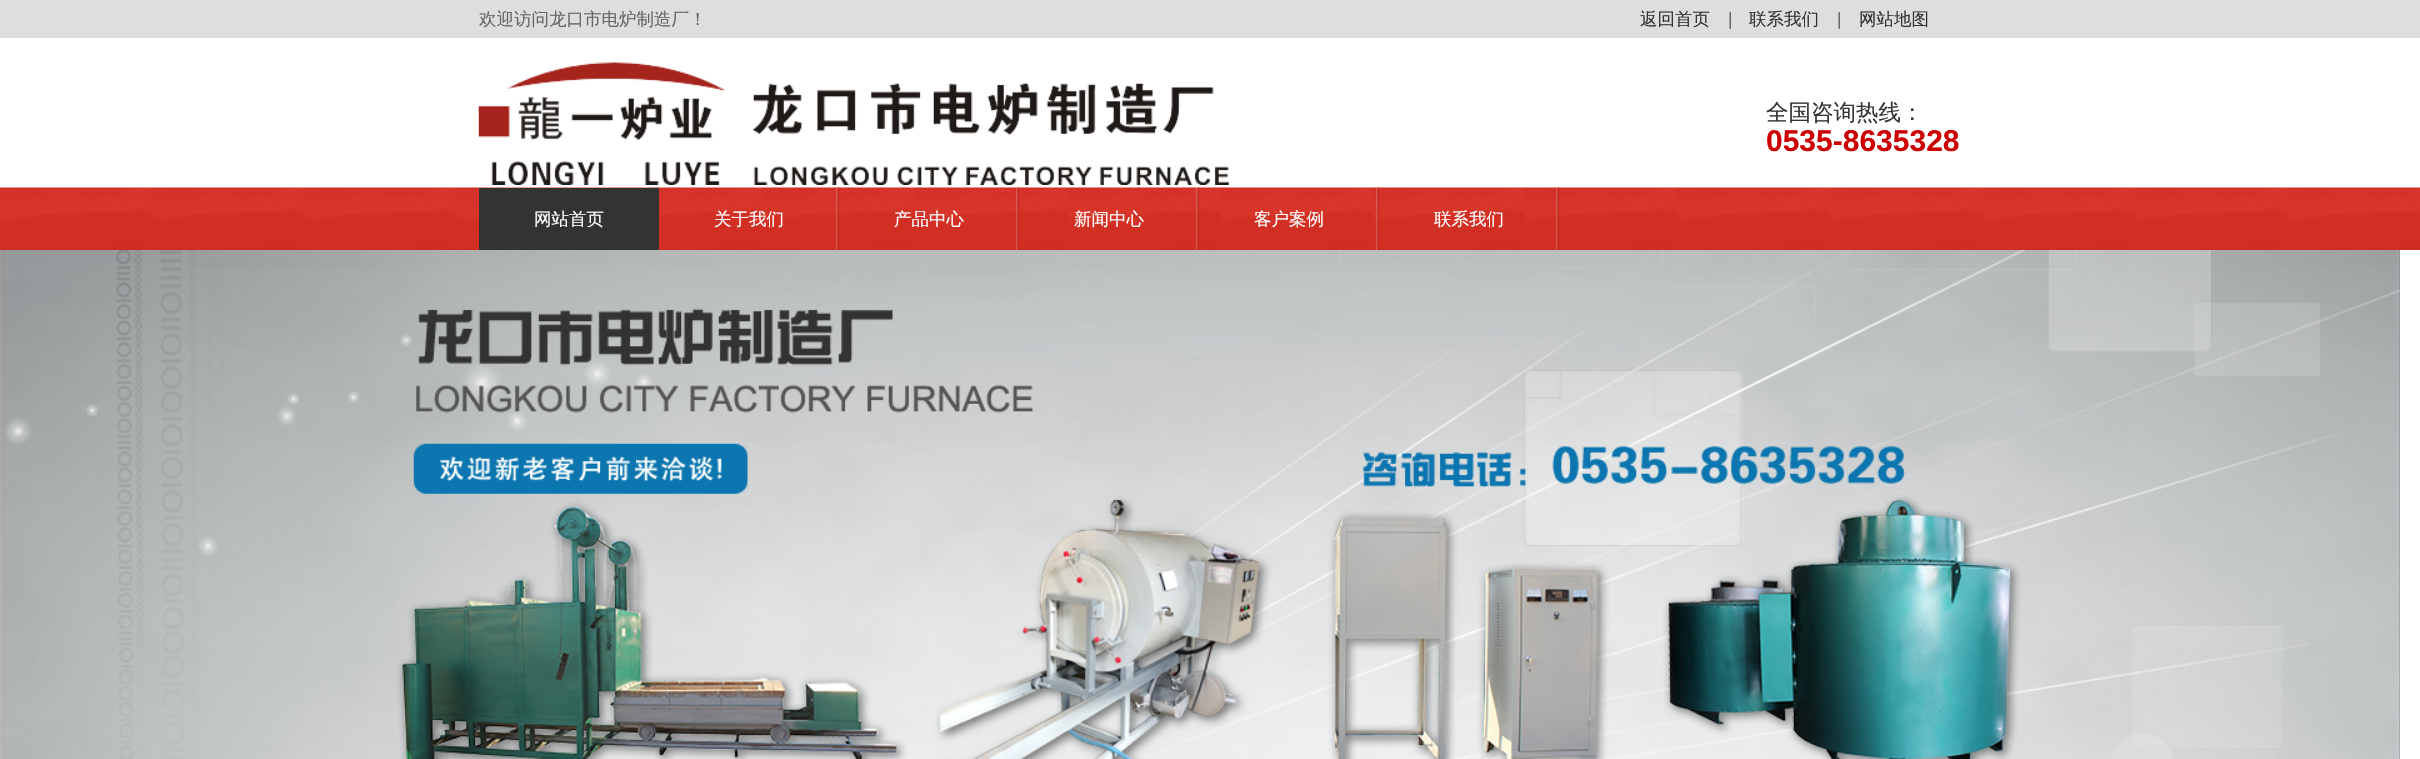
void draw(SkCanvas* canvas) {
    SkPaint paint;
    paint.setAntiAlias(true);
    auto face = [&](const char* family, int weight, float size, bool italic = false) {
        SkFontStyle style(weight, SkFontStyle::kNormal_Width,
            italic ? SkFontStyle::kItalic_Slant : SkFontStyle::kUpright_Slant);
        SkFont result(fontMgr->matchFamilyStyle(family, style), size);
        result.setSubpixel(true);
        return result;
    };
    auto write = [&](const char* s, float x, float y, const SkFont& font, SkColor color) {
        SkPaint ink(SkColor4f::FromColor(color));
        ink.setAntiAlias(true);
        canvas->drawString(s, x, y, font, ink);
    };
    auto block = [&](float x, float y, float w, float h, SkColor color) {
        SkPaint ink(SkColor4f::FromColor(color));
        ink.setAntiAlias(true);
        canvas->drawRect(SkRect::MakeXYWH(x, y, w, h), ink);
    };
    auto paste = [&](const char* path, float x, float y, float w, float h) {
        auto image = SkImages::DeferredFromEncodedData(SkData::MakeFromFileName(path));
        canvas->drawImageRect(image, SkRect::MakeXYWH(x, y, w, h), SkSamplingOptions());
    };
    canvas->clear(SK_ColorWHITE);
    block(0, 0, 2420, 38, SkColorSetRGB(222, 222, 222));
    auto kFont1 = face("WenQuanYi Zen Hei", 500, 17.5f);
    write("欢迎访问龙口市电炉制造厂！", 479, 25, kFont1, SkColorSetRGB(102, 102, 102));
    write("返回首页", 1640, 25, kFont1, SkColorSetRGB(51, 51, 51));
    auto kFont2 = face("Liberation Sans", 400, 17.5f);
    write("|", 1728, 25, kFont2, SkColorSetRGB(102, 102, 102));
    write("联系我们", 1749, 25, kFont1, SkColorSetRGB(51, 51, 51));
    write("|", 1837, 25, kFont2, SkColorSetRGB(102, 102, 102));
    write("网站地图", 1859, 25, kFont1, SkColorSetRGB(51, 51, 51));
    paste("pic1.png", 478, 62, 751, 123);
    auto kFont3 = face("WenQuanYi Zen Hei", 500, 22.5f);
    write("全国咨询热线：", 1766, 120, kFont3, SkColorSetRGB(51, 51, 51));
    auto kFont4 = face("Liberation Sans", 700, 30);
    write("0535-8635328", 1766, 151, kFont4, SkColorSetRGB(204, 0, 0));
    paste("pic2.png", 0, 187, 2420, 63);
    paste("pic3.png", 656, 187, 3, 1);
    block(479, 188, 180, 62, SkColorSetRGB(51, 51, 51));
    write("网站首页", 534, 225, kFont1, SK_ColorWHITE);
    paste("pic4.png", 836, 187, 3, 63);
    write("关于我们", 714, 225, kFont1, SK_ColorWHITE);
    paste("pic5.png", 1016, 187, 3, 63);
    write("产品中心", 894, 225, kFont1, SK_ColorWHITE);
    paste("pic6.png", 1196, 187, 3, 63);
    write("新闻中心", 1074, 225, kFont1, SK_ColorWHITE);
    paste("pic7.png", 1376, 187, 3, 63);
    write("客户案例", 1254, 225, kFont1, SK_ColorWHITE);
    paste("pic8.png", 1556, 187, 3, 63);
    write("联系我们", 1434, 225, kFont1, SK_ColorWHITE);
    paste("pic9.png", 0, 250, 2400, 509);
}
